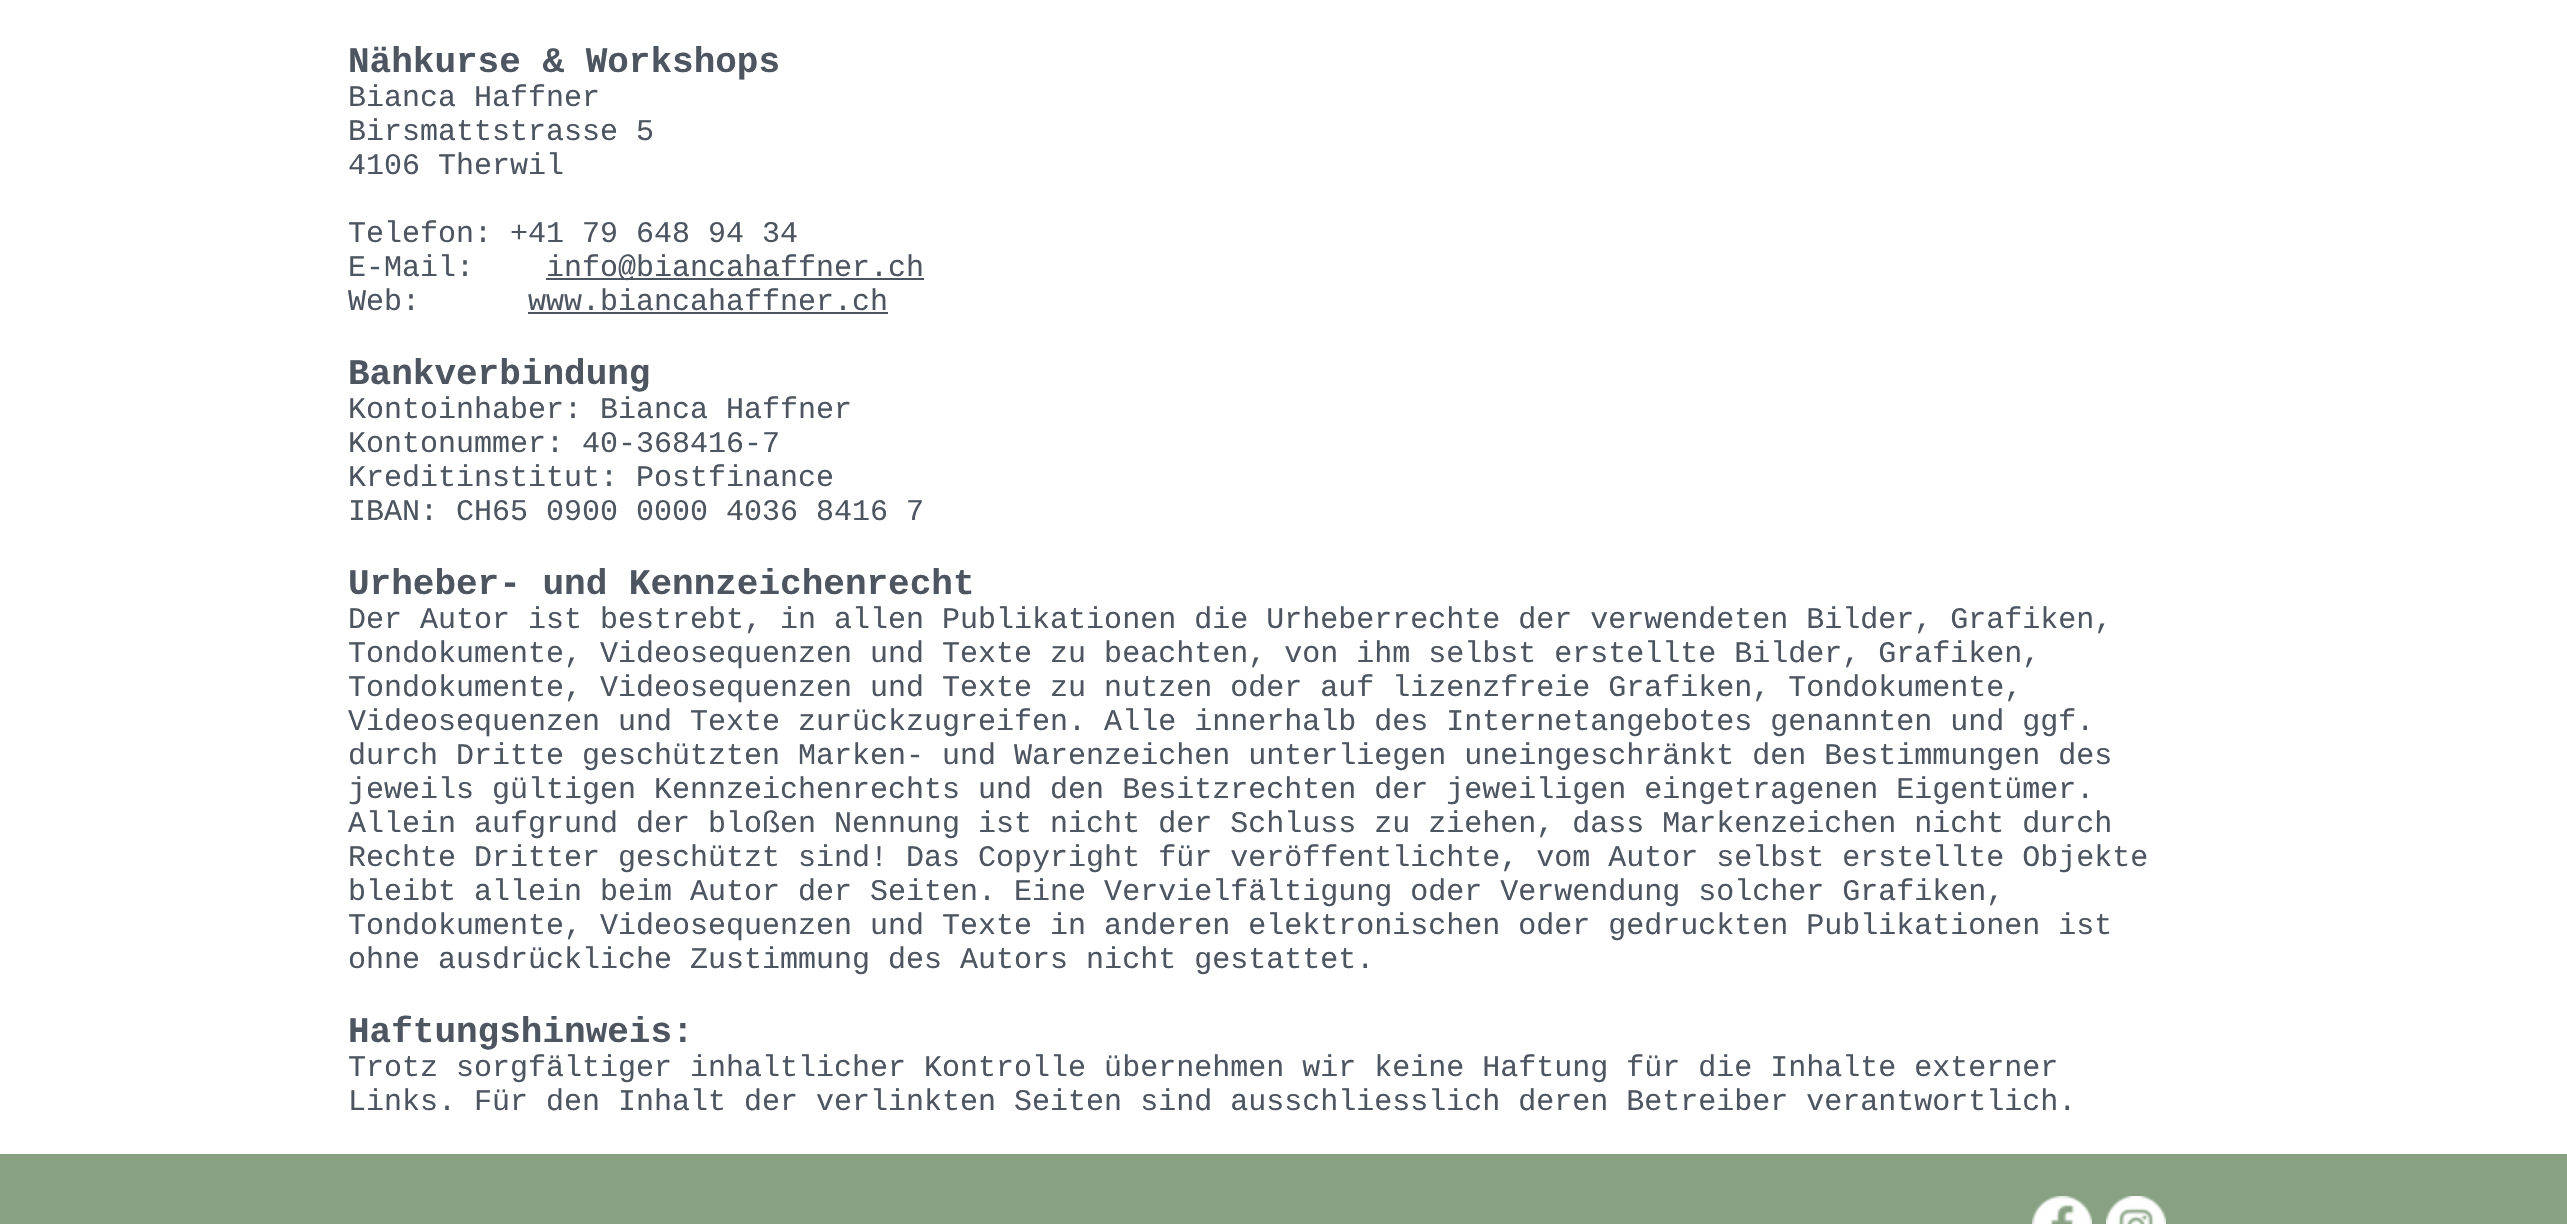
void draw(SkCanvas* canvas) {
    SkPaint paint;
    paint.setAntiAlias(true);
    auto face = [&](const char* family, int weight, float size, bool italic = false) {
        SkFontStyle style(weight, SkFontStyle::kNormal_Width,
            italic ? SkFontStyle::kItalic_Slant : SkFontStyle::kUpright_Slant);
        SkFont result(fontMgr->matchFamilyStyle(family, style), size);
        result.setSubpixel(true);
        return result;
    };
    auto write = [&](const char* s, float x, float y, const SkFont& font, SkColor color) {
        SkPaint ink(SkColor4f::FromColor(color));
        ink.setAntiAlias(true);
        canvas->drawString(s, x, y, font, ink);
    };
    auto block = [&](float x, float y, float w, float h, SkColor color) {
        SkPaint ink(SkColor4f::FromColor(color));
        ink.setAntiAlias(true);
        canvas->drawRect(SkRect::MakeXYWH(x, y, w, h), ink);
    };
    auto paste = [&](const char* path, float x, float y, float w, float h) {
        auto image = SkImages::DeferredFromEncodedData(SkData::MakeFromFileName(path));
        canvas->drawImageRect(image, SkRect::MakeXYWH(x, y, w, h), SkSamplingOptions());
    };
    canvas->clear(SK_ColorWHITE);
    auto kFont1 = face("Liberation Mono", 700, 36);
    write("Nähkurse & Workshops", 348, 72, kFont1, SkColorSetRGB(77, 85, 97));
    auto kFont2 = face("Liberation Mono", 400, 30);
    write("Bianca Haffner", 348, 106, kFont2, SkColorSetRGB(77, 85, 97));
    write("Birsmattstrasse 5", 348, 140, kFont2, SkColorSetRGB(77, 85, 97));
    write("4106 Therwil", 348, 174, kFont2, SkColorSetRGB(77, 85, 97));
    write("Telefon: +41 79 648 94 34", 348, 242, kFont2, SkColorSetRGB(77, 85, 97));
    write("E-Mail:", 348, 276, kFont2, SkColorSetRGB(77, 85, 97));
    block(546, 278, 378, 2, SkColorSetRGB(77, 85, 97));
    write("info@biancahaffner.ch", 546, 276, kFont2, SkColorSetRGB(77, 85, 97));
    write("Web:", 348, 310, kFont2, SkColorSetRGB(77, 85, 97));
    write("www.biancahaffner.ch", 528, 310, kFont2, SkColorSetRGB(77, 85, 97));
    block(528, 312, 360, 2, SkColorSetRGB(77, 85, 97));
    write("Bankverbindung", 348, 384, kFont1, SkColorSetRGB(77, 85, 97));
    write("Kontoinhaber: Bianca Haffner", 348, 418, kFont2, SkColorSetRGB(77, 85, 97));
    write("Kontonummer: 40-368416-7", 348, 452, kFont2, SkColorSetRGB(77, 85, 97));
    write("Kreditinstitut: Postfinance", 348, 486, kFont2, SkColorSetRGB(77, 85, 97));
    write("IBAN: CH65 0900 0000 4036 8416 7", 348, 520, kFont2, SkColorSetRGB(77, 85, 97));
    write("Urheber- und Kennzeichenrecht", 348, 594, kFont1, SkColorSetRGB(77, 85, 97));
    write("Der Autor ist bestrebt, in allen Publikationen die Urheberrechte der verwendeten Bilder, Grafiken,", 348, 628, kFont2, SkColorSetRGB(77, 85, 97));
    write("Tondokumente, Videosequenzen und Texte zu beachten, von ihm selbst erstellte Bilder, Grafiken,", 348, 662, kFont2, SkColorSetRGB(77, 85, 97));
    write("Tondokumente, Videosequenzen und Texte zu nutzen oder auf lizenzfreie Grafiken, Tondokumente,", 348, 696, kFont2, SkColorSetRGB(77, 85, 97));
    write("Videosequenzen und Texte zurückzugreifen. Alle innerhalb des Internetangebotes genannten und ggf.", 348, 730, kFont2, SkColorSetRGB(77, 85, 97));
    write("durch Dritte geschützten Marken- und Warenzeichen unterliegen uneingeschränkt den Bestimmungen des", 348, 764, kFont2, SkColorSetRGB(77, 85, 97));
    write("jeweils gültigen Kennzeichenrechts und den Besitzrechten der jeweiligen eingetragenen Eigentümer.", 348, 798, kFont2, SkColorSetRGB(77, 85, 97));
    write("Allein aufgrund der bloßen Nennung ist nicht der Schluss zu ziehen, dass Markenzeichen nicht durch", 348, 832, kFont2, SkColorSetRGB(77, 85, 97));
    write("Rechte Dritter geschützt sind! Das Copyright für veröffentlichte, vom Autor selbst erstellte Objekte", 348, 866, kFont2, SkColorSetRGB(77, 85, 97));
    write("bleibt allein beim Autor der Seiten. Eine Vervielfältigung oder Verwendung solcher Grafiken,", 348, 900, kFont2, SkColorSetRGB(77, 85, 97));
    write("Tondokumente, Videosequenzen und Texte in anderen elektronischen oder gedruckten Publikationen ist", 348, 934, kFont2, SkColorSetRGB(77, 85, 97));
    write("ohne ausdrückliche Zustimmung des Autors nicht gestattet.", 348, 968, kFont2, SkColorSetRGB(77, 85, 97));
    write("Haftungshinweis:", 348, 1042, kFont1, SkColorSetRGB(77, 85, 97));
    write("Trotz sorgfältiger inhaltlicher Kontrolle übernehmen wir keine Haftung für die Inhalte externer", 348, 1076, kFont2, SkColorSetRGB(77, 85, 97));
    write("Links. Für den Inhalt der verlinkten Seiten sind ausschliesslich deren Betreiber verantwortlich.", 348, 1110, kFont2, SkColorSetRGB(77, 85, 97));
    block(0, 1154, 2567, 70, SkColorSetRGB(135, 161, 130));
    paste("pic1.png", 2032, 1196, 60, 28);
    paste("pic2.png", 2106, 1196, 60, 28);
}
